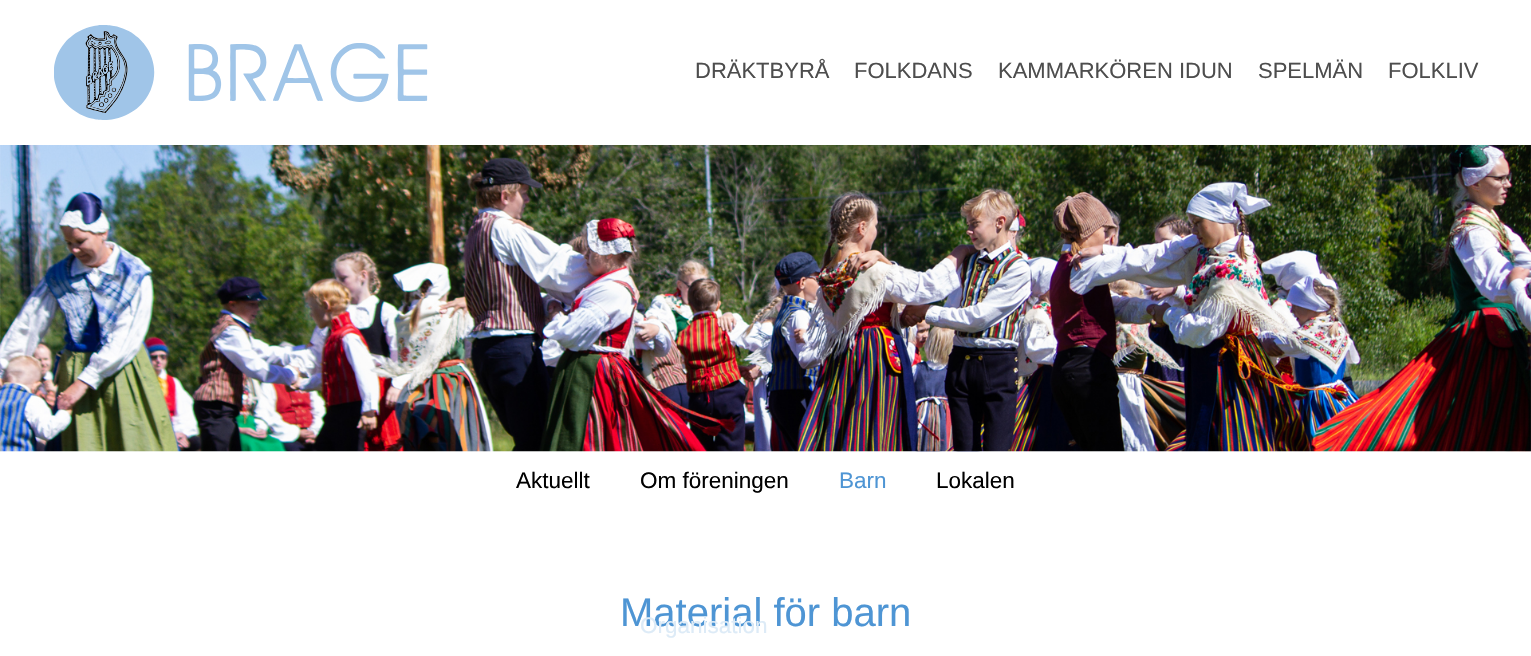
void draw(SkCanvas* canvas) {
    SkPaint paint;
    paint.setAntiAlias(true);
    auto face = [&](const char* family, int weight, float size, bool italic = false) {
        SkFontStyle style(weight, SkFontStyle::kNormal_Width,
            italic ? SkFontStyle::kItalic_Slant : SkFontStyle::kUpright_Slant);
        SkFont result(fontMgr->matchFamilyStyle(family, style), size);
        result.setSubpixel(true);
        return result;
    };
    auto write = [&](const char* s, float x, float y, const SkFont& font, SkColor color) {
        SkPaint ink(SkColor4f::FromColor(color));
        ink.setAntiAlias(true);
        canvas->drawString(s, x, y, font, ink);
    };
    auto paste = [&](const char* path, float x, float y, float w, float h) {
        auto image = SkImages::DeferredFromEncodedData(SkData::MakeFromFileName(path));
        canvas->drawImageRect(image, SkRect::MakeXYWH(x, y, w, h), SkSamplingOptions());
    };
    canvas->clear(SK_ColorWHITE);
    paste("pic1.png", 54, 25, 374, 95);
    auto kFont1 = face("Arimo", 400, 22);
    write("DRÄKTBYRÅ", 695, 78, kFont1, SkColorSetRGB(77, 77, 77));
    write("FOLKDANS", 854, 78, kFont1, SkColorSetRGB(77, 77, 77));
    write("KAMMARKÖREN IDUN", 998, 78, kFont1, SkColorSetRGB(77, 77, 77));
    write("SPELMÄN", 1258, 78, kFont1, SkColorSetRGB(77, 77, 77));
    write("FOLKLIV", 1388, 78, kFont1, SkColorSetRGB(77, 77, 77));
    paste("pic2.png", 0, 451, 1531, 1);
    paste("pic3.png", 0, 145, 1531, 307);
    auto kFont2 = face("Arimo", 400, 22.5f);
    write("Aktuellt", 516, 488, kFont2, SK_ColorBLACK);
    write("Om föreningen", 640, 488, kFont2, SK_ColorBLACK);
    auto kFont3 = face("Arimo", 400, 40);
    write("Material för barn", 620, 626, kFont3, SkColorSetRGB(78, 149, 212));
    write("Organisation", 640, 633, kFont2, SkColorSetRGB(221, 235, 247));
    write("Barn", 839, 488, kFont2, SkColorSetRGB(78, 149, 212));
    write("Lokalen", 936, 488, kFont2, SK_ColorBLACK);
}
